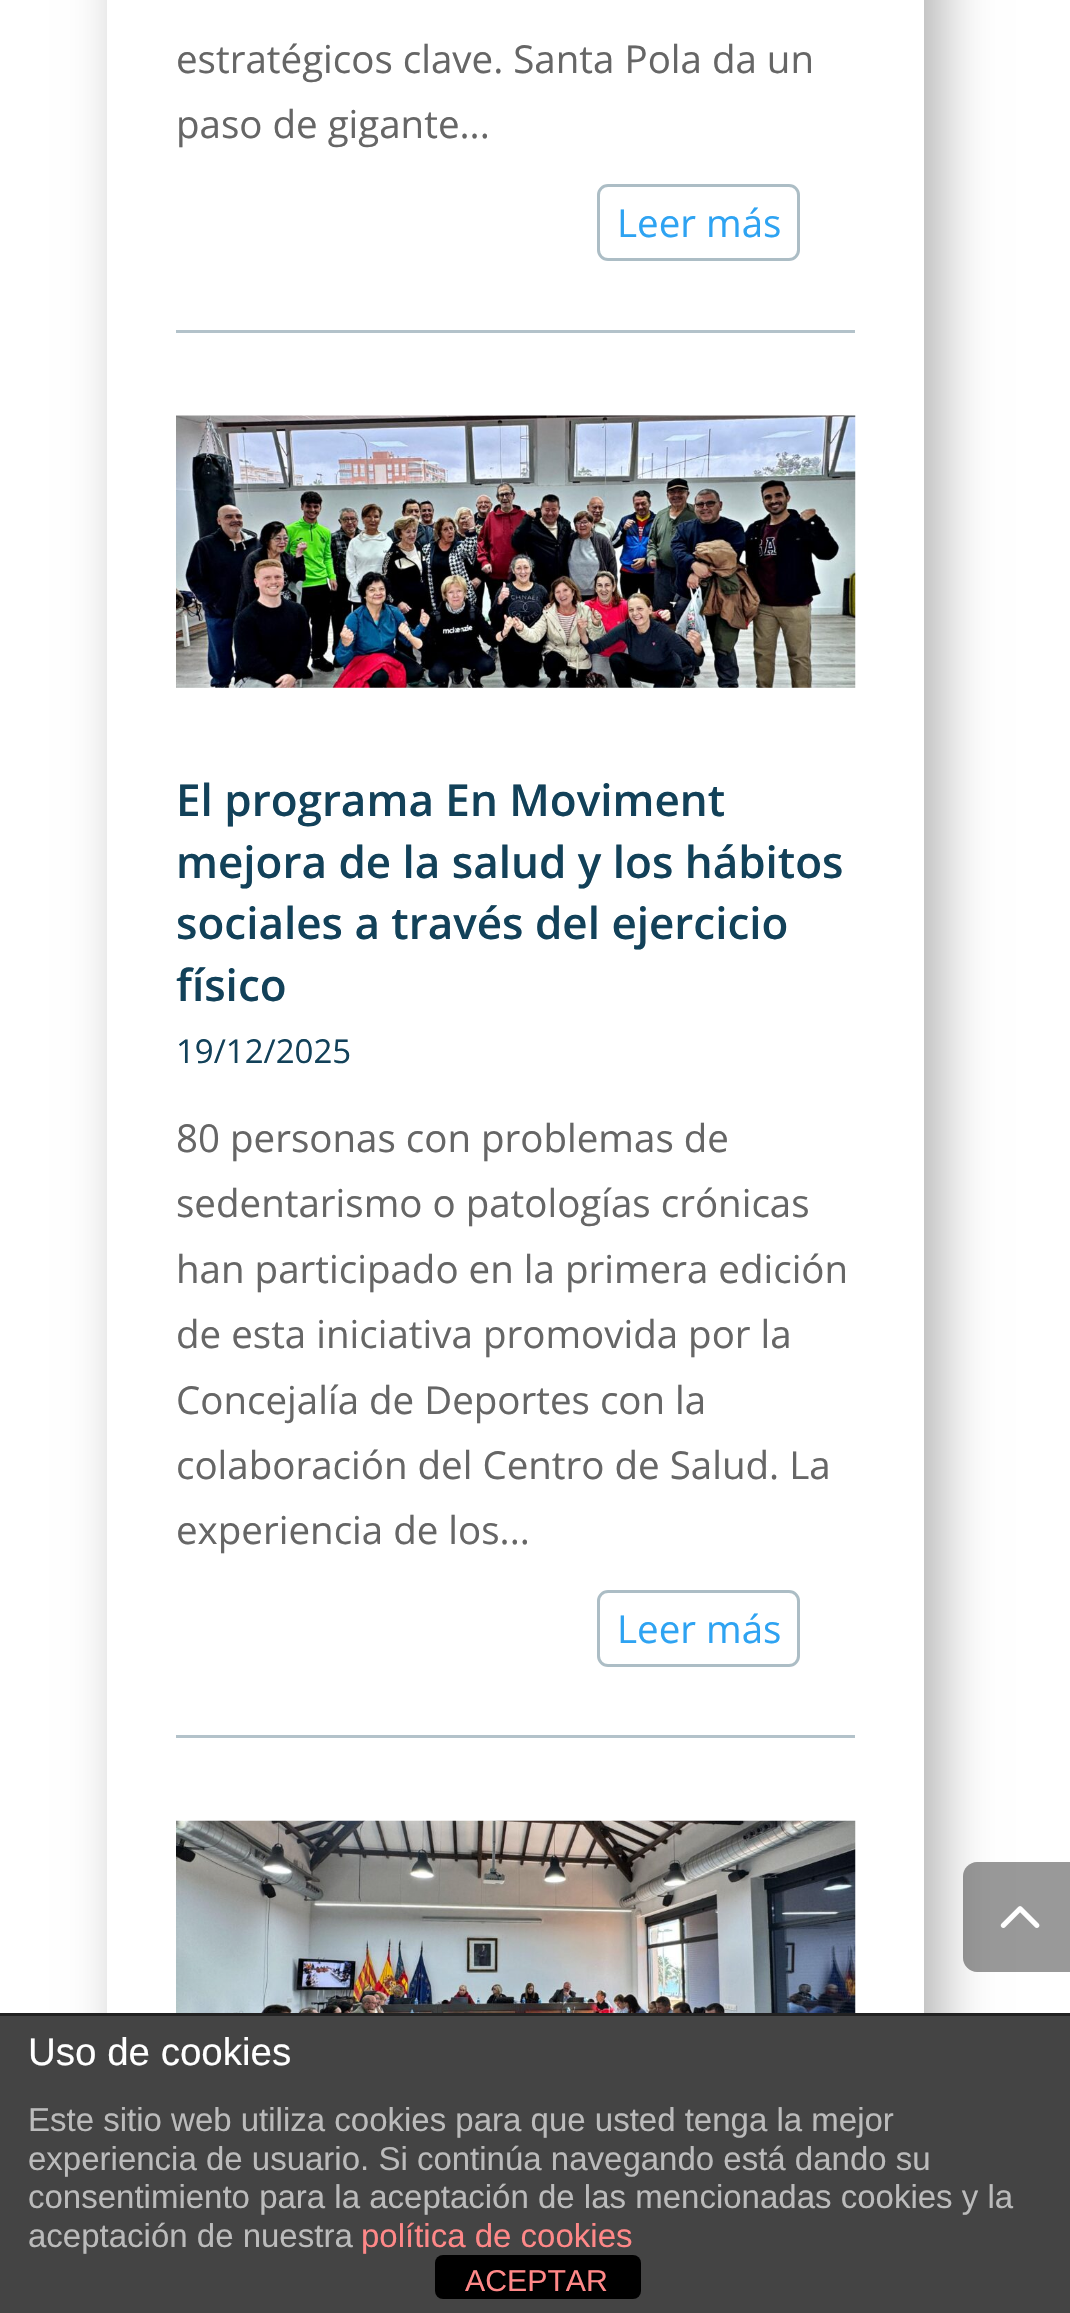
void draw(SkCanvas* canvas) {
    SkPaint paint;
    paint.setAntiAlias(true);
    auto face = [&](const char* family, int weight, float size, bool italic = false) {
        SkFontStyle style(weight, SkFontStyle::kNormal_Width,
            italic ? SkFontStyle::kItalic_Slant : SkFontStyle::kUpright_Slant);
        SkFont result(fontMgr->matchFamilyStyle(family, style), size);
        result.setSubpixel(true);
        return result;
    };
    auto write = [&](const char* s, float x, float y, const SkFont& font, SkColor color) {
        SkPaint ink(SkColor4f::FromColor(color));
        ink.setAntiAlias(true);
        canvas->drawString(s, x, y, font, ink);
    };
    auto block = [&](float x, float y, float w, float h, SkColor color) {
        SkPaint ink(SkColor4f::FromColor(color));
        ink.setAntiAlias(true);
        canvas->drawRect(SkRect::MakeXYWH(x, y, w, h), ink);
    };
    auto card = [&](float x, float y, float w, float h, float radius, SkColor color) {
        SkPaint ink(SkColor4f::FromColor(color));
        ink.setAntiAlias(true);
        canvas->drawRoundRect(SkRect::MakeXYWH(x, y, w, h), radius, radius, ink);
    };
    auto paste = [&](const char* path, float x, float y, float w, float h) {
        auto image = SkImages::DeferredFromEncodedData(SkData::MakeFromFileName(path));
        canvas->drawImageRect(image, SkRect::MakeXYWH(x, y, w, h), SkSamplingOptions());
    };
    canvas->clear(SK_ColorWHITE);
    canvas->save();
    canvas->clipPath(SkPathBuilder(SkPathFillType::kEvenOdd).moveTo(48, 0).lineTo(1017, 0).lineTo(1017, 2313).lineTo(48, 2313).close().moveTo(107, -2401).lineTo(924, -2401).lineTo(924, 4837).lineTo(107, 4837).close().detach(), true);
    paint.setColor(SkColorSetARGB(77, 0, 0, 0));
    paint.setMaskFilter(SkMaskFilter::MakeBlur(kNormal_SkBlurStyle, 25));
    canvas->drawRect(SkRect::MakeXYWH(124, -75, 817, 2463), paint);
    paint.setMaskFilter(nullptr);
    canvas->restore();
    block(176, 330, 679, 3, SkColorSetRGB(179, 194, 202));
    auto kFont1 = face("Open Sans", 400, 38.5f);
    write("estratégicos clave. Santa Pola da un", 176, 73, kFont1, SkColorSetRGB(102, 102, 102));
    write("paso de gigante...", 176, 138, kFont1, SkColorSetRGB(102, 102, 102));
    paint.setStyle(SkPaint::kStroke_Style);
    paint.setStrokeWidth(3);
    paint.setColor(SkColorSetRGB(172, 189, 197));
    canvas->drawRoundRect(SkRect::MakeXYWH(598.5f, 185.5f, 200, 74), 9.5f, 9.5f, paint);
    write("Leer más", 617, 237, kFont1, SkColorSetRGB(46, 163, 242));
    block(176, 1735, 679, 3, SkColorSetRGB(179, 194, 202));
    paste("pic1.png", 176, 415, 680, 273);
    auto kFont2 = face("Open Sans", 600, 44);
    write("El programa En Moviment", 176, 816, kFont2, SkColorSetRGB(18, 65, 89));
    write("mejora de la salud y los hábitos", 176, 878, kFont2, SkColorSetRGB(18, 65, 89));
    write("sociales a través del ejercicio", 176, 939, kFont2, SkColorSetRGB(18, 65, 89));
    write("físico", 176, 1001, kFont2, SkColorSetRGB(18, 65, 89));
    auto kFont3 = face("Open Sans", 400, 33);
    write("19/12/2025", 176, 1063, kFont3, SkColorSetRGB(18, 65, 89));
    write("80 personas con problemas de", 176, 1152, kFont1, SkColorSetRGB(102, 102, 102));
    write("sedentarismo o patologías crónicas", 176, 1217, kFont1, SkColorSetRGB(102, 102, 102));
    write("han participado en la primera edición", 176, 1283, kFont1, SkColorSetRGB(102, 102, 102));
    write("de esta iniciativa promovida por la", 176, 1348, kFont1, SkColorSetRGB(102, 102, 102));
    write("Concejalía de Deportes con la", 176, 1414, kFont1, SkColorSetRGB(102, 102, 102));
    write("colaboración del Centro de Salud. La", 176, 1479, kFont1, SkColorSetRGB(102, 102, 102));
    write("experiencia de los...", 176, 1544, kFont1, SkColorSetRGB(102, 102, 102));
    canvas->drawRoundRect(SkRect::MakeXYWH(598.5f, 1591.5f, 200, 74), 9.5f, 9.5f, paint);
    write("Leer más", 617, 1643, kFont1, SkColorSetRGB(46, 163, 242));
    paste("pic2.png", 176, 1820, 680, 193);
    paint.setStyle(SkPaint::kFill_Style);
    paint.setColor(SkColorSetARGB(102, 0, 0, 0));
    canvas->drawPath(SkPathBuilder().moveTo(977, 1862).lineTo(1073, 1862).lineTo(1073, 1972).lineTo(977, 1972).cubicTo(969.5f, 1972, 963, 1965.5f, 963, 1958).lineTo(963, 1876).cubicTo(963, 1868.5f, 969.5f, 1862, 977, 1862).close().detach(), paint);
    paste("pic3.png", 1000, 1906, 40, 22);
    block(0, 2016, 1070, 297, SkColorSetRGB(68, 68, 68));
    block(0, 2013, 1070, 3, SkColorSetRGB(34, 34, 34));
    auto kFont4 = face("Liberation Sans", 400, 38.5f);
    write("Uso de cookies", 28, 2065, kFont4, SK_ColorWHITE);
    auto kFont5 = face("Liberation Sans", 400, 33);
    write("Este sitio web utiliza cookies para que usted tenga la mejor", 28, 2131, kFont5, SkColorSetRGB(187, 187, 187));
    write("experiencia de usuario. Si continúa navegando está dando su", 28, 2170, kFont5, SkColorSetRGB(187, 187, 187));
    write("consentimiento para la aceptación de las mencionadas cookies y la", 28, 2208, kFont5, SkColorSetRGB(187, 187, 187));
    write("aceptación de nuestra", 28, 2247, kFont5, SkColorSetRGB(187, 187, 187));
    write("política de cookies", 361, 2247, kFont5, SkColorSetRGB(255, 136, 136));
    card(435, 2255, 206, 44, 8, SK_ColorBLACK);
    auto kFont6 = face("Liberation Sans", 400, 30.25f);
    write("ACEPTAR", 465, 2291, kFont6, SkColorSetRGB(255, 136, 136));
}
